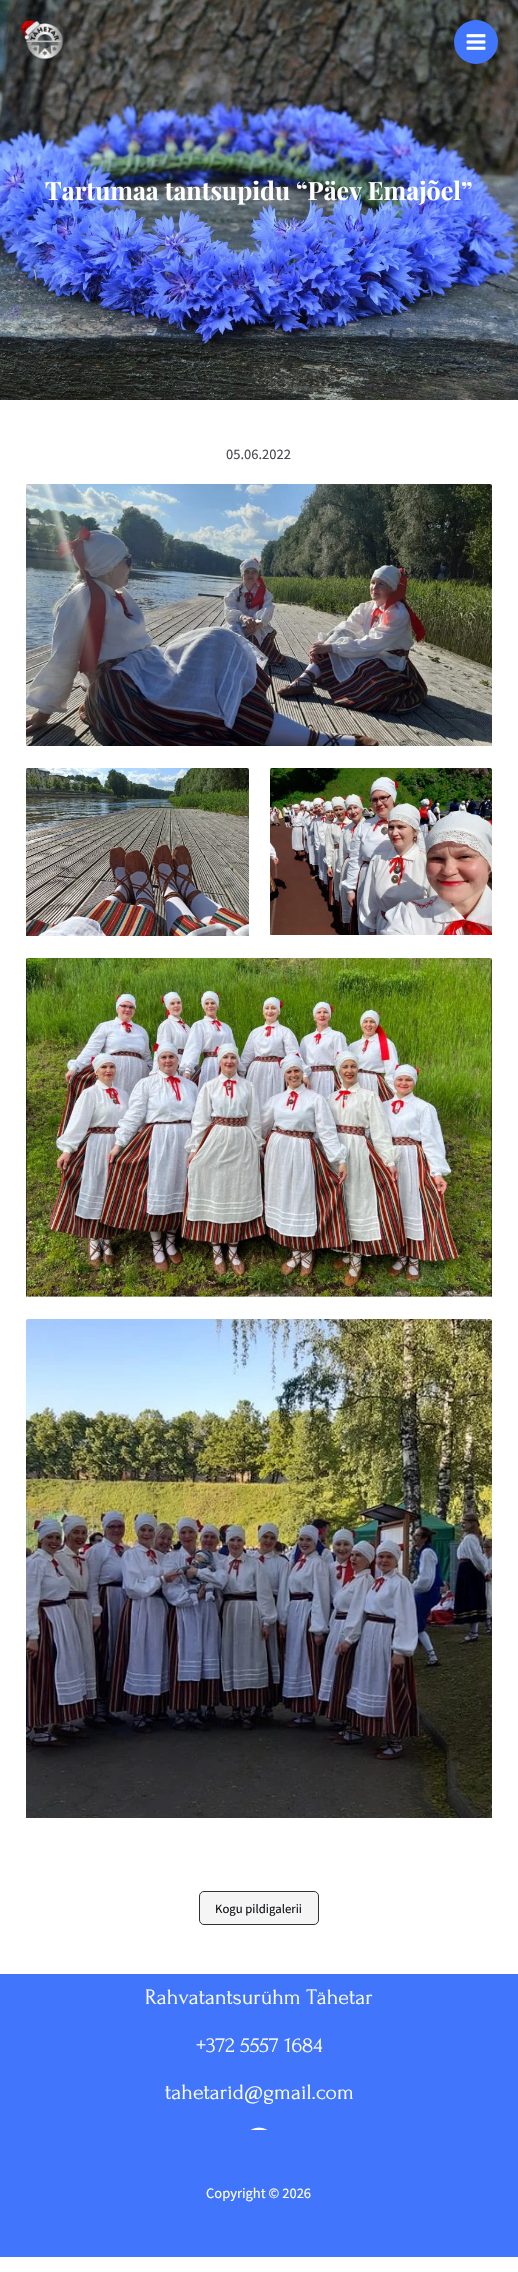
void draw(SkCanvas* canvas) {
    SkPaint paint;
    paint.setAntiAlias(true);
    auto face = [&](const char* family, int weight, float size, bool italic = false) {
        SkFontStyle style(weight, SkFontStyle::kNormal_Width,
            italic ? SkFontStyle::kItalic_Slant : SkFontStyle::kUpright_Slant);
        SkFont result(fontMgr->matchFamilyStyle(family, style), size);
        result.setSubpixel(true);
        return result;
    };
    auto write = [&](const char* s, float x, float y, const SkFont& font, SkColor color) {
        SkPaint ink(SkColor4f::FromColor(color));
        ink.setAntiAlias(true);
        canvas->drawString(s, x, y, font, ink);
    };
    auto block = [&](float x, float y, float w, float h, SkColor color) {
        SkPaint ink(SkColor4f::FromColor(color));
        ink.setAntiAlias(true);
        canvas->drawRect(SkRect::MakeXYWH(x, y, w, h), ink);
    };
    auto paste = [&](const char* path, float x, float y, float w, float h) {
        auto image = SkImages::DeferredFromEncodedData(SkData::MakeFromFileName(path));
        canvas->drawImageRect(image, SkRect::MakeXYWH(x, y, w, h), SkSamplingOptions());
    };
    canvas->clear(SK_ColorWHITE);
    paste("pic3.png", 0, 0, 518, 400);
    paste("pic1.png", 20, 20, 44, 40);
    paint.setColor(SkColorSetRGB(65, 117, 252));
    canvas->drawCircle(476, 42, 22, paint);
    paste("pic2.png", 466, 34, 20, 16);
    auto kFont1 = face("Playfair Display", 700, 25);
    write("Tartumaa tantsupidu “Päev Emajõel”", 45, 200, kFont1, SK_ColorWHITE);
    auto kFont2 = face("Source Sans Pro", 400, 14.5f);
    write("05.06.2022", 226, 459, kFont2, SkColorSetRGB(73, 75, 81));
    paste("pic4.png", 26, 484, 466, 262);
    paste("pic5.png", 26, 768, 223, 168);
    paste("pic6.png", 270, 768, 222, 167);
    paste("pic7.png", 26, 958, 466, 339);
    paste("pic8.png", 26, 1319, 466, 499);
    paint.setColor(SkColorSetRGB(245, 245, 245));
    canvas->drawRoundRect(SkRect::MakeXYWH(199.5f, 1891.5f, 119, 33), 4.5f, 4.5f, paint);
    paint.setStyle(SkPaint::kStroke_Style);
    paint.setStrokeWidth(1);
    paint.setColor(SkColorSetRGB(51, 51, 51));
    canvas->drawRoundRect(SkRect::MakeXYWH(199.5f, 1891.5f, 119, 33), 4.5f, 4.5f, paint);
    auto kFont3 = face("Source Sans Pro", 400, 12.75f);
    write("Kogu pildigalerii", 215, 1913, kFont3, SkColorSetRGB(16, 18, 24));
    block(0, 1974, 518, 283, SkColorSetRGB(65, 117, 252));
    auto kFont4 = face("Forum", 400, 21.9f);
    write("Rahvatantsurühm Tähetar", 145, 2004, kFont4, SK_ColorWHITE);
    write("+372 5557 1684", 196, 2052, kFont4, SK_ColorWHITE);
    write("tahetarid@gmail.com", 165, 2099, kFont4, SK_ColorWHITE);
    paste("pic9.png", 250, 2127, 18, 3);
    write("Copyright © 2026", 206, 2198, kFont2, SK_ColorWHITE);
}
